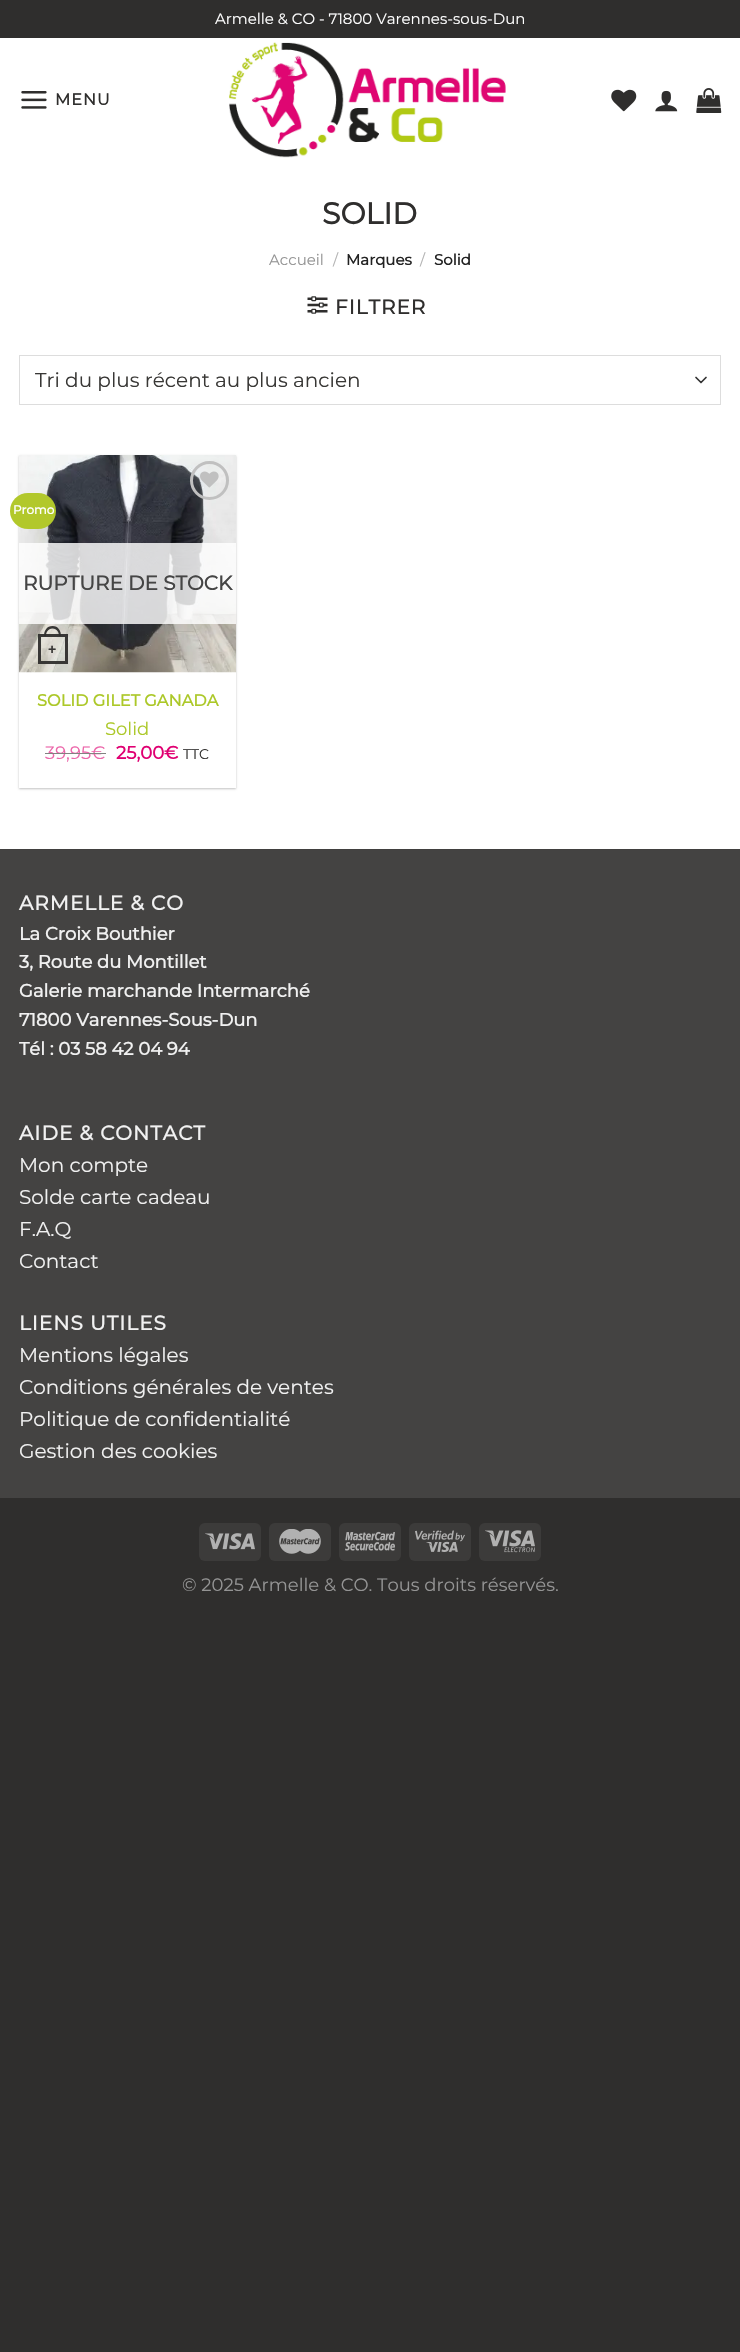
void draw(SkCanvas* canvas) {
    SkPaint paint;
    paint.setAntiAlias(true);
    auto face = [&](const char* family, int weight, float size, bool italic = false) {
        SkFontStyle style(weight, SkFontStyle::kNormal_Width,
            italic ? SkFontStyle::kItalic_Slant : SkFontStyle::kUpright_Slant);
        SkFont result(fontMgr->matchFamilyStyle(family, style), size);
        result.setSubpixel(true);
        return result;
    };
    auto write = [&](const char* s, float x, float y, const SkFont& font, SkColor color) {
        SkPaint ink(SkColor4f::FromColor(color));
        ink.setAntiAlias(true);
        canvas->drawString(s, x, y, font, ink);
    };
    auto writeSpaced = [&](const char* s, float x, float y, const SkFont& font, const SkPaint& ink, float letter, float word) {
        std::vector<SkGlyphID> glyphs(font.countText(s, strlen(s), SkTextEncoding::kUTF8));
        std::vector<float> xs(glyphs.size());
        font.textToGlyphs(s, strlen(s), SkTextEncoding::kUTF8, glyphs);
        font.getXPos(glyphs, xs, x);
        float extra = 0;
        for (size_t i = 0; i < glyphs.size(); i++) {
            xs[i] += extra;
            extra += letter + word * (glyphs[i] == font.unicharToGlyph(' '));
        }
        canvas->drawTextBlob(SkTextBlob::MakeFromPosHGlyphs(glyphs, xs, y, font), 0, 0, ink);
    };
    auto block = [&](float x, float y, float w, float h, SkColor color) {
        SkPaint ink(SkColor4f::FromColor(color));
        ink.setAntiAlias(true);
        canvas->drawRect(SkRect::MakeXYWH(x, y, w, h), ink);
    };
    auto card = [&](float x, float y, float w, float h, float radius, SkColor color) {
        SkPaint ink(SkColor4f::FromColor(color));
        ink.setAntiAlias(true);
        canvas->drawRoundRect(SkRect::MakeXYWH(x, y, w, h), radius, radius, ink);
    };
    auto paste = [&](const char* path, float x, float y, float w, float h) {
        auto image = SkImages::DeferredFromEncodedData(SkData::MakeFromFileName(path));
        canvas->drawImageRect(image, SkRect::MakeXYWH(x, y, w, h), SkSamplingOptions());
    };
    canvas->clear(SkColorSetRGB(47, 46, 45));
    block(0, 38, 740, 811, SK_ColorWHITE);
    auto kFont1 = face("Montserrat", 100, 15);
    write("Armelle & CO - 71800 Varennes-sous-Dun", 215, 24, kFont1, SK_ColorWHITE);
    paste("pic1.png", 21, 91, 26, 18);
    auto kFont2 = face("Montserrat", 700, 16);
    paint.setColor(SkColorSetRGB(47, 46, 45));
    writeSpaced("MENU", 55, 105, kFont2, paint, 1, 0);
    paste("pic2.png", 229, 42, 277, 116);
    paste("pic3.png", 611, 89, 26, 23);
    paste("pic4.png", 655, 90, 23, 22);
    paste("pic5.png", 696, 88, 26, 25);
    auto kFont3 = face("Montserrat", 700, 30);
    write("SOLID", 322, 224, kFont3, SkColorSetRGB(47, 46, 45));
    write("Accueil", 269, 265, kFont1, SkColorSetRGB(148, 148, 148));
    write("/", 333, 265, kFont1, SkColorSetRGB(178, 178, 178));
    auto kFont4 = face("Montserrat", 700, 15);
    write("Marques", 346, 265, kFont4, SkColorSetRGB(34, 34, 34));
    write("/", 420, 265, kFont1, SkColorSetRGB(178, 178, 178));
    write("Solid", 434, 265, kFont4, SkColorSetRGB(34, 34, 34));
    paste("pic6.png", 307, 296, 21, 18);
    auto kFont5 = face("Montserrat", 700, 20);
    writeSpaced("FILTRER", 335, 314, kFont5, paint, 1, 0);
    paint.setStyle(SkPaint::kStroke_Style);
    paint.setStrokeWidth(1.7f);
    paint.setStrokeCap(SkPaint::kRound_Cap);
    paint.setStrokeJoin(SkPaint::kRound_Join);
    paint.setColor(SkColorSetRGB(51, 51, 51));
    canvas->drawPath(SkPathBuilder().moveTo(696, 377.5f).lineTo(701, 382.5f).lineTo(706, 377.5f).detach(), paint);
    paint.setStrokeWidth(1);
    paint.setStrokeCap(SkPaint::kButt_Cap);
    paint.setStrokeJoin(SkPaint::kMiter_Join);
    paint.setColor(SkColorSetRGB(221, 221, 221));
    canvas->drawRect(SkRect::MakeXYWH(19.5f, 355.5f, 701, 49), paint);
    auto kFont6 = face("Montserrat", 100, 20);
    write("Tri du plus récent au plus ancien", 35, 387, kFont6, SkColorSetRGB(56, 55, 53));
    paint.setStyle(SkPaint::kFill_Style);
    paint.setColor(SkColorSetARGB(61, 0, 0, 0));
    paint.setMaskFilter(SkMaskFilter::MakeBlur(kNormal_SkBlurStyle, 1));
    canvas->drawRect(SkRect::MakeXYWH(19, 456, 217, 333), paint);
    paint.setMaskFilter(nullptr);
    block(19, 672, 217, 116, SK_ColorWHITE);
    paste("pic7.png", 18, 455, 219, 218);
    card(10, 493, 46, 36, 18, SkColorSetRGB(178, 200, 43));
    auto kFont7 = face("Montserrat", 700, 12);
    write("Promo", 13, 514, kFont7, SK_ColorWHITE);
    paint.setStyle(SkPaint::kStroke_Style);
    paint.setStrokeWidth(3);
    paint.setColor(SkColorSetRGB(192, 192, 192));
    canvas->drawCircle(209.5f, 480.5f, 18, paint);
    paste("pic8.png", 200, 471, 19, 17);
    block(19, 543, 217, 81, SkColorSetARGB(207, 255, 255, 255));
    write("RUPTURE DE STOCK", 23, 590, kFont5, SkColorSetRGB(69, 69, 69));
    paint.setColor(SkColorSetARGB(242, 47, 46, 45));
    canvas->drawRect(SkRect::MakeXYWH(39.5f, 635.5f, 27, 27), paint);
    paint.setStyle(SkPaint::kFill_Style);
    canvas->drawPath(SkPathBuilder(SkPathFillType::kEvenOdd).moveTo(52.5f, 626).cubicTo(58.5f, 626, 61, 631, 61, 636).lineTo(44, 636).cubicTo(44, 631, 46.5f, 626, 52.5f, 626).close().moveTo(52.5f, 628.5f).cubicTo(57, 628.5f, 59, 632.5f, 59, 636).lineTo(46, 636).cubicTo(46, 632.5f, 48, 628.5f, 52.5f, 628.5f).close().detach(), paint);
    auto kFont8 = face("Liberation Sans", 700, 14);
    write("+", 48, 654, kFont8, SkColorSetRGB(56, 55, 53));
    auto kFont9 = face("Montserrat", 700, 16.25f);
    write("SOLID GILET GANADA", 37, 706, kFont9, SkColorSetRGB(172, 200, 40));
    auto kFont10 = face("Montserrat", 100, 18);
    write("Solid", 105, 735, kFont10, SkColorSetRGB(172, 200, 40));
    write("39,95€", 45, 759, kFont10, SkColorSetRGB(236, 102, 170));
    block(45, 753, 61, 1, SkColorSetRGB(130, 130, 129));
    auto kFont11 = face("Montserrat", 700, 18);
    write("25,00€", 116, 759, kFont11, SkColorSetRGB(224, 0, 114));
    auto kFont12 = face("Montserrat", 100, 14);
    write("TTC", 183, 759, kFont12, SkColorSetRGB(47, 46, 45));
    block(0, 850, 740, 648, SkColorSetRGB(68, 67, 66));
    block(0, 849, 740, 1, SkColorSetRGB(65, 64, 63));
    paint.setColor(SkColorSetRGB(241, 241, 241));
    writeSpaced("ARMELLE & CO", 19, 910, kFont5, paint, 1, 0);
    write("La Croix Bouthier", 19, 940, kFont11, SkColorSetRGB(241, 241, 241));
    write("3, Route du Montillet", 19, 968, kFont11, SkColorSetRGB(241, 241, 241));
    write("Galerie marchande Intermarché", 19, 997, kFont11, SkColorSetRGB(241, 241, 241));
    write("71800 Varennes-Sous-Dun", 19, 1026, kFont11, SkColorSetRGB(241, 241, 241));
    write("Tél : 03 58 42 04 94", 19, 1055, kFont11, SkColorSetRGB(241, 241, 241));
    writeSpaced("AIDE & CONTACT", 19, 1140, kFont5, paint, 1, 0);
    write("Mon compte", 19, 1172, kFont6, SkColorSetRGB(241, 241, 241));
    write("Solde carte cadeau", 19, 1204, kFont6, SkColorSetRGB(241, 241, 241));
    write("F.A.Q", 19, 1236, kFont6, SkColorSetRGB(241, 241, 241));
    write("Contact", 19, 1268, kFont6, SkColorSetRGB(241, 241, 241));
    writeSpaced("LIENS UTILES", 19, 1330, kFont5, paint, 1, 0);
    write("Mentions légales", 19, 1362, kFont6, SkColorSetRGB(241, 241, 241));
    write("Conditions générales de ventes", 19, 1394, kFont6, SkColorSetRGB(241, 241, 241));
    write("Politique de confidentialité", 19, 1426, kFont6, SkColorSetRGB(241, 241, 241));
    write("Gestion des cookies", 19, 1458, kFont6, SkColorSetRGB(241, 241, 241));
    card(199, 1523, 62, 38, 6, SkColorSetRGB(60, 59, 58));
    paste("pic9.png", 205, 1533, 50, 17);
    card(269, 1523, 62, 38, 6, SkColorSetRGB(60, 59, 58));
    paste("pic10.png", 279, 1529, 42, 25);
    card(339, 1523, 62, 38, 6, SkColorSetRGB(60, 59, 58));
    paste("pic11.png", 345, 1531, 50, 20);
    card(409, 1523, 62, 38, 6, SkColorSetRGB(60, 59, 58));
    paste("pic12.png", 415, 1530, 50, 22);
    card(479, 1523, 62, 38, 6, SkColorSetRGB(60, 59, 58));
    paste("pic13.png", 485, 1530, 50, 23);
    write("© 2025 Armelle & CO. Tous droits réservés.", 182, 1591, kFont10, SkColorSetRGB(148, 148, 148));
}
